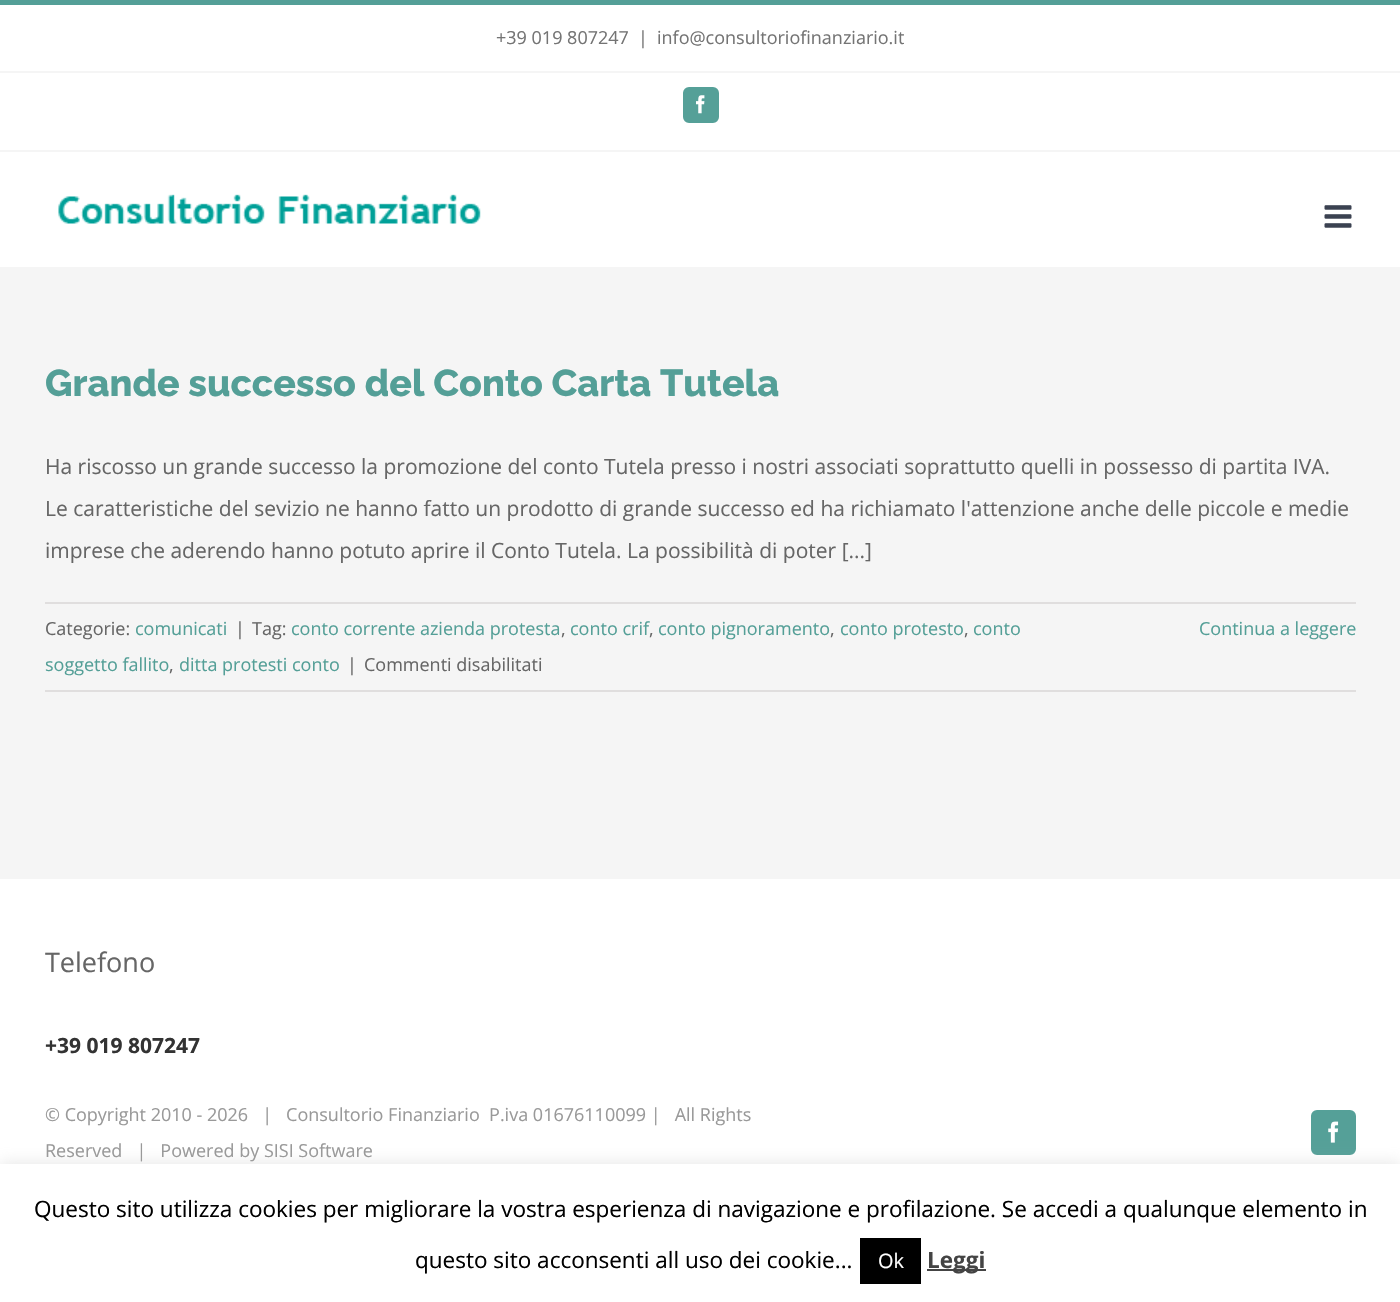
void draw(SkCanvas* canvas) {
    SkPaint paint;
    paint.setAntiAlias(true);
    auto face = [&](const char* family, int weight, float size, bool italic = false) {
        SkFontStyle style(weight, SkFontStyle::kNormal_Width,
            italic ? SkFontStyle::kItalic_Slant : SkFontStyle::kUpright_Slant);
        SkFont result(fontMgr->matchFamilyStyle(family, style), size);
        result.setSubpixel(true);
        return result;
    };
    auto write = [&](const char* s, float x, float y, const SkFont& font, SkColor color) {
        SkPaint ink(SkColor4f::FromColor(color));
        ink.setAntiAlias(true);
        canvas->drawString(s, x, y, font, ink);
    };
    auto block = [&](float x, float y, float w, float h, SkColor color) {
        SkPaint ink(SkColor4f::FromColor(color));
        ink.setAntiAlias(true);
        canvas->drawRect(SkRect::MakeXYWH(x, y, w, h), ink);
    };
    auto paste = [&](const char* path, float x, float y, float w, float h) {
        auto image = SkImages::DeferredFromEncodedData(SkData::MakeFromFileName(path));
        canvas->drawImageRect(image, SkRect::MakeXYWH(x, y, w, h), SkSamplingOptions());
    };
    canvas->clear(SkColorSetRGB(245, 245, 245));
    block(0, 5, 1400, 145, SK_ColorWHITE);
    block(0, 0, 1400, 5, SkColorSetRGB(84, 159, 151));
    block(0, 71, 1400, 2, SkColorSetRGB(245, 245, 245));
    auto kFont1 = face("Open Sans", 400, 18);
    write("+39 019 807247", 496, 44, kFont1, SkColorSetRGB(116, 116, 116));
    write("|", 638, 44, kFont1, SkColorSetRGB(116, 116, 116));
    write("info@consultoriofinanziario.it", 657, 44, kFont1, SkColorSetRGB(116, 116, 116));
    paint.setColor(SkColorSetRGB(85, 160, 152));
    canvas->drawRoundRect(SkRect::MakeXYWH(684, 88, 34, 34), 5, 5, paint);
    paint.setStyle(SkPaint::kStroke_Style);
    paint.setStrokeWidth(2);
    canvas->drawRoundRect(SkRect::MakeXYWH(684, 88, 34, 34), 5, 5, paint);
    paste("pic1.png", 696, 95, 9, 19);
    block(0, 152, 1400, 115, SK_ColorWHITE);
    paste("pic2.png", 58, 194, 423, 30);
    paste("pic3.png", 1324, 205, 28, 23);
    auto kFont2 = face("Raleway", 100, 37.5f);
    write("Grande successo del Conto Carta Tutela", 45, 396, kFont2, SkColorSetRGB(84, 159, 151));
    auto kFont3 = face("Open Sans", 400, 21);
    write("Ha riscosso un grande successo la promozione del conto Tutela presso i nostri associati soprattutto quelli in possesso di partita IVA.", 45, 474, kFont3, SkColorSetRGB(102, 102, 102));
    write("Le caratteristiche del sevizio ne hanno fatto un prodotto di grande successo ed ha richiamato l'attenzione anche delle piccole e medie", 45, 516, kFont3, SkColorSetRGB(102, 102, 102));
    write("imprese che aderendo hanno potuto aprire il Conto Tutela. La possibilità di poter [...]", 45, 558, kFont3, SkColorSetRGB(102, 102, 102));
    block(45, 602, 1311, 2, SkColorSetRGB(224, 222, 222));
    block(45, 690, 1311, 2, SkColorSetRGB(224, 222, 222));
    write("Categorie:", 45, 635, kFont1, SkColorSetRGB(102, 102, 102));
    write("comunicati", 135, 635, kFont1, SkColorSetRGB(84, 159, 151));
    write("|", 235, 635, kFont1, SkColorSetRGB(102, 102, 102));
    write("Tag:", 252, 635, kFont1, SkColorSetRGB(102, 102, 102));
    write("conto corrente azienda protesta", 291, 635, kFont1, SkColorSetRGB(84, 159, 151));
    write(",", 561, 635, kFont1, SkColorSetRGB(102, 102, 102));
    write("conto crif", 570, 635, kFont1, SkColorSetRGB(84, 159, 151));
    write(",", 649, 635, kFont1, SkColorSetRGB(102, 102, 102));
    write("conto pignoramento", 658, 635, kFont1, SkColorSetRGB(84, 159, 151));
    write(",", 830, 635, kFont1, SkColorSetRGB(102, 102, 102));
    write("conto protesto", 840, 635, kFont1, SkColorSetRGB(84, 159, 151));
    write(",", 964, 635, kFont1, SkColorSetRGB(102, 102, 102));
    write("conto", 973, 635, kFont1, SkColorSetRGB(84, 159, 151));
    write("soggetto fallito", 45, 671, kFont1, SkColorSetRGB(84, 159, 151));
    write(",", 169, 671, kFont1, SkColorSetRGB(102, 102, 102));
    write("ditta protesti conto", 179, 671, kFont1, SkColorSetRGB(84, 159, 151));
    write("|", 347, 671, kFont1, SkColorSetRGB(102, 102, 102));
    write("Commenti disabilitati", 364, 671, kFont1, SkColorSetRGB(102, 102, 102));
    write("Continua a leggere", 1199, 635, kFont1, SkColorSetRGB(84, 159, 151));
    block(0, 879, 1400, 285, SK_ColorWHITE);
    auto kFont4 = face("Open Sans", 400, 27);
    write("Telefono", 45, 972, kFont4, SkColorSetRGB(102, 102, 102));
    auto kFont5 = face("Open Sans", 700, 21);
    write("+39 019 807247", 45, 1053, kFont5, SkColorSetRGB(51, 51, 51));
    write("© Copyright 2010 - 2026   |   Consultorio Finanziario  P.iva 01676110099 |   All Rights", 45, 1121, kFont1, SkColorSetRGB(153, 153, 153));
    write("Reserved   |   Powered by SISI Software", 45, 1157, kFont1, SkColorSetRGB(153, 153, 153));
    paint.setStyle(SkPaint::kFill_Style);
    canvas->drawRoundRect(SkRect::MakeXYWH(1312, 1111, 43, 43), 5, 5, paint);
    paint.setStyle(SkPaint::kStroke_Style);
    canvas->drawRoundRect(SkRect::MakeXYWH(1312, 1111, 43, 43), 5, 5, paint);
    paste("pic4.png", 1328, 1121, 11, 22);
    paint.setStyle(SkPaint::kFill_Style);
    paint.setColor(SkColorSetARGB(77, 172, 171, 171));
    paint.setMaskFilter(SkMaskFilter::MakeBlur(kNormal_SkBlurStyle, 7.5f));
    canvas->drawRect(SkRect::MakeXYWH(0, 1163, 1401, 138), paint);
    paint.setMaskFilter(nullptr);
    block(0, 1164, 1400, 138, SK_ColorWHITE);
    auto kFont6 = face("Open Sans", 400, 22.5f);
    write("Questo sito utilizza cookies per migliorare la vostra esperienza di navigazione e profilazione. Se accedi a qualunque elemento in", 34, 1217, kFont6, SK_ColorBLACK);
    write("questo sito acconsenti all uso dei cookie...", 415, 1268, kFont6, SK_ColorBLACK);
    block(860, 1238, 61, 46, SK_ColorBLACK);
    auto kFont7 = face("Open Sans", 400, 20);
    write("Ok", 878, 1268, kFont7, SK_ColorWHITE);
    block(927, 1269, 59, 2, SkColorSetRGB(68, 68, 68));
    auto kFont8 = face("Open Sans", 700, 22.5f);
    write("Leggi", 927, 1268, kFont8, SkColorSetRGB(68, 68, 68));
}
